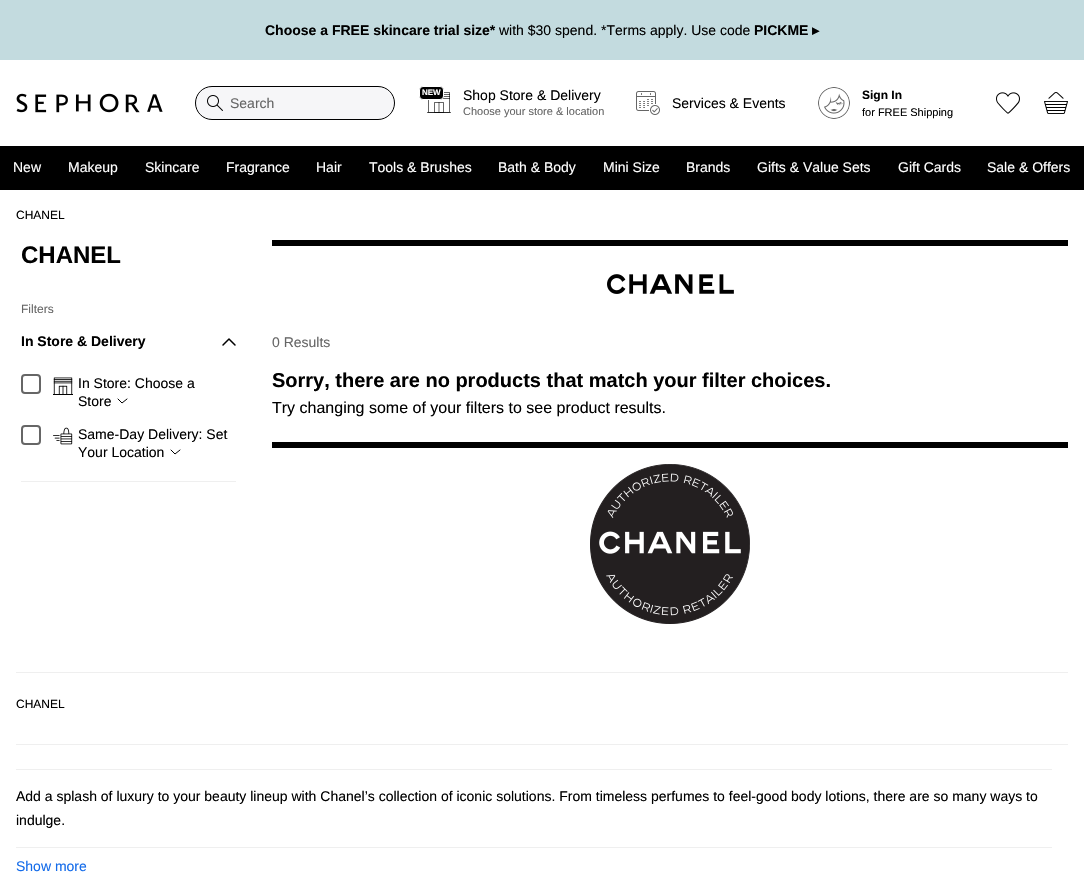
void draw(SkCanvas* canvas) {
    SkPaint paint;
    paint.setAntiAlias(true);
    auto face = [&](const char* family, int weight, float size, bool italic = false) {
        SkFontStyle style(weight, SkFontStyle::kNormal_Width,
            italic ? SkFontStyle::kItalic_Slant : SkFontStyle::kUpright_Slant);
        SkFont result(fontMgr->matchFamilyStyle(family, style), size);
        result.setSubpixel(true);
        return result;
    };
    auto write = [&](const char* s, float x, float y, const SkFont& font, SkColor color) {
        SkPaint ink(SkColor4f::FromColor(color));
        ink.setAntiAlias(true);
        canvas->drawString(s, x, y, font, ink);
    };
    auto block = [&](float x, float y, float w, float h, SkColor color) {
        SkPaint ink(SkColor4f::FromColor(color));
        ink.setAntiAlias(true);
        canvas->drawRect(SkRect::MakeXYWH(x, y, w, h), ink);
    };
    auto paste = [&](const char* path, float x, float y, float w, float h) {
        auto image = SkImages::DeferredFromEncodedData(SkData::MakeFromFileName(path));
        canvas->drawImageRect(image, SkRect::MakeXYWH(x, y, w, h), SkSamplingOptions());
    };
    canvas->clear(SK_ColorWHITE);
    block(0, 0, 1084, 60, SkColorSetRGB(195, 219, 223));
    auto kFont1 = face("Liberation Sans", 700, 14);
    write("Choose a FREE skincare trial size*", 265, 35, kFont1, SK_ColorBLACK);
    auto kFont2 = face("Liberation Sans", 400, 14);
    write("with $30 spend. *Terms apply. Use code", 499, 35, kFont2, SK_ColorBLACK);
    write("PICKME", 754, 35, kFont1, SK_ColorBLACK);
    auto kFont3 = face("DejaVu Sans", 700, 14);
    write("▸", 812, 35, kFont3, SK_ColorBLACK);
    paste("pic1.png", 16, 93, 147, 20);
    paint.setColor(SkColorSetRGB(246, 246, 248));
    canvas->drawRoundRect(SkRect::MakeXYWH(195.5f, 86.5f, 199, 33), 16.5f, 16.5f, paint);
    paint.setStyle(SkPaint::kStroke_Style);
    paint.setStrokeWidth(1);
    paint.setColor(SK_ColorBLACK);
    canvas->drawRoundRect(SkRect::MakeXYWH(195.5f, 86.5f, 199, 33), 16.5f, 16.5f, paint);
    paste("pic2.png", 207, 95, 16, 16);
    write("Search", 230, 108, kFont2, SkColorSetRGB(102, 102, 102));
    paste("pic3.png", 427, 92, 24, 21);
    paint.setStyle(SkPaint::kFill_Style);
    canvas->drawRoundRect(SkRect::MakeXYWH(419.5f, 86.5f, 24, 13), 3.5f, 3.5f, paint);
    paint.setStyle(SkPaint::kStroke_Style);
    paint.setColor(SK_ColorWHITE);
    canvas->drawRoundRect(SkRect::MakeXYWH(419.5f, 86.5f, 24, 13), 3.5f, 3.5f, paint);
    auto kFont4 = face("Liberation Sans", 700, 8);
    write("NEW", 422, 95, kFont4, SK_ColorWHITE);
    write("Shop Store & Delivery", 463, 100, kFont2, SK_ColorBLACK);
    auto kFont5 = face("Liberation Sans", 400, 11);
    write("Choose your store & location", 463, 115, kFont5, SkColorSetRGB(102, 102, 102));
    paste("pic4.png", 636, 91, 24, 24);
    write("Services & Events", 672, 108, kFont2, SK_ColorBLACK);
    paste("pic5.png", 818, 87, 32, 32);
    auto kFont6 = face("Liberation Sans", 700, 12);
    write("Sign In", 862, 99, kFont6, SK_ColorBLACK);
    write("for FREE Shipping", 862, 116, kFont5, SK_ColorBLACK);
    paste("pic6.png", 996, 92, 24, 22);
    paste("pic7.png", 1044, 92, 24, 22);
    block(0, 146, 1084, 44, SK_ColorBLACK);
    write("New", 13, 172, kFont2, SK_ColorWHITE);
    write("Makeup", 68, 172, kFont2, SK_ColorWHITE);
    write("Skincare", 145, 172, kFont2, SK_ColorWHITE);
    write("Fragrance", 226, 172, kFont2, SK_ColorWHITE);
    write("Hair", 316, 172, kFont2, SK_ColorWHITE);
    write("Tools & Brushes", 369, 172, kFont2, SK_ColorWHITE);
    write("Bath & Body", 498, 172, kFont2, SK_ColorWHITE);
    write("Mini Size", 603, 172, kFont2, SK_ColorWHITE);
    write("Brands", 686, 172, kFont2, SK_ColorWHITE);
    write("Gifts & Value Sets", 757, 172, kFont2, SK_ColorWHITE);
    write("Gift Cards", 898, 172, kFont2, SK_ColorWHITE);
    write("Sale & Offers", 987, 172, kFont2, SK_ColorWHITE);
    auto kFont7 = face("Liberation Sans", 400, 12);
    write("CHANEL", 16, 219, kFont7, SK_ColorBLACK);
    auto kFont8 = face("Liberation Sans", 700, 24);
    write("CHANEL", 21, 263, kFont8, SK_ColorBLACK);
    write("Filters", 21, 313, kFont7, SkColorSetRGB(102, 102, 102));
    write("In Store & Delivery", 21, 346, kFont1, SK_ColorBLACK);
    paint.setStrokeWidth(1.5f);
    paint.setStrokeCap(SkPaint::kRound_Cap);
    paint.setStrokeJoin(SkPaint::kRound_Join);
    paint.setColor(SK_ColorBLACK);
    canvas->drawPath(SkPathBuilder().moveTo(235, 345).lineTo(229, 339).lineTo(223, 345).detach(), paint);
    paint.setStrokeWidth(2);
    paint.setStrokeCap(SkPaint::kButt_Cap);
    paint.setStrokeJoin(SkPaint::kMiter_Join);
    paint.setColor(SkColorSetRGB(102, 102, 102));
    canvas->drawRoundRect(SkRect::MakeXYWH(22, 375, 18, 18), 3, 3, paint);
    paste("pic8.png", 53, 377, 20, 18);
    write("In Store: Choose a", 78, 388, kFont2, SK_ColorBLACK);
    write("Store", 78, 406, kFont2, SK_ColorBLACK);
    paint.setStrokeWidth(1);
    paint.setStrokeCap(SkPaint::kRound_Cap);
    paint.setStrokeJoin(SkPaint::kRound_Join);
    paint.setColor(SK_ColorBLACK);
    canvas->drawPath(SkPathBuilder().moveTo(118, 399).lineTo(122, 403).lineTo(127, 399).detach(), paint);
    paint.setStrokeWidth(2);
    paint.setStrokeCap(SkPaint::kButt_Cap);
    paint.setStrokeJoin(SkPaint::kMiter_Join);
    paint.setColor(SkColorSetRGB(102, 102, 102));
    canvas->drawRoundRect(SkRect::MakeXYWH(22, 426, 18, 18), 3, 3, paint);
    paste("pic9.png", 53, 427, 20, 18);
    write("Same-Day Delivery: Set", 78, 439, kFont2, SK_ColorBLACK);
    write("Your Location", 78, 457, kFont2, SK_ColorBLACK);
    paint.setStrokeWidth(1);
    paint.setStrokeCap(SkPaint::kRound_Cap);
    paint.setStrokeJoin(SkPaint::kRound_Join);
    paint.setColor(SK_ColorBLACK);
    canvas->drawPath(SkPathBuilder().moveTo(171, 450).lineTo(175, 454).lineTo(180, 450).detach(), paint);
    block(21, 481, 215, 1, SkColorSetRGB(239, 239, 239));
    block(272, 240, 796, 6, SK_ColorBLACK);
    paste("pic10.png", 607, 274, 127, 20);
    write("0 Results", 272, 347, kFont2, SkColorSetRGB(102, 102, 102));
    auto kFont9 = face("Liberation Sans", 700, 20);
    write("Sorry, there are no products that match your filter choices.", 272, 387, kFont9, SK_ColorBLACK);
    auto kFont10 = face("Liberation Sans", 400, 16);
    write("Try changing some of your filters to see product results.", 272, 413, kFont10, SK_ColorBLACK);
    block(272, 442, 796, 6, SK_ColorBLACK);
    paste("pic11.png", 590, 464, 160, 160);
    block(16, 672, 1052, 1, SkColorSetRGB(239, 239, 239));
    write("CHANEL", 16, 708, kFont7, SK_ColorBLACK);
    block(16, 744, 1052, 1, SkColorSetRGB(239, 239, 239));
    block(16, 769, 1036, 1, SkColorSetRGB(239, 239, 239));
    write("Add a splash of luxury to your beauty lineup with Chanel’s collection of iconic solutions. From timeless perfumes to feel-good body lotions, there are so many ways to", 16, 801, kFont2, SK_ColorBLACK);
    write("indulge.", 16, 825, kFont2, SK_ColorBLACK);
    block(16, 847, 1036, 1, SkColorSetRGB(239, 239, 239));
    write("Show more", 16, 871, kFont2, SkColorSetRGB(19, 107, 234));
}
